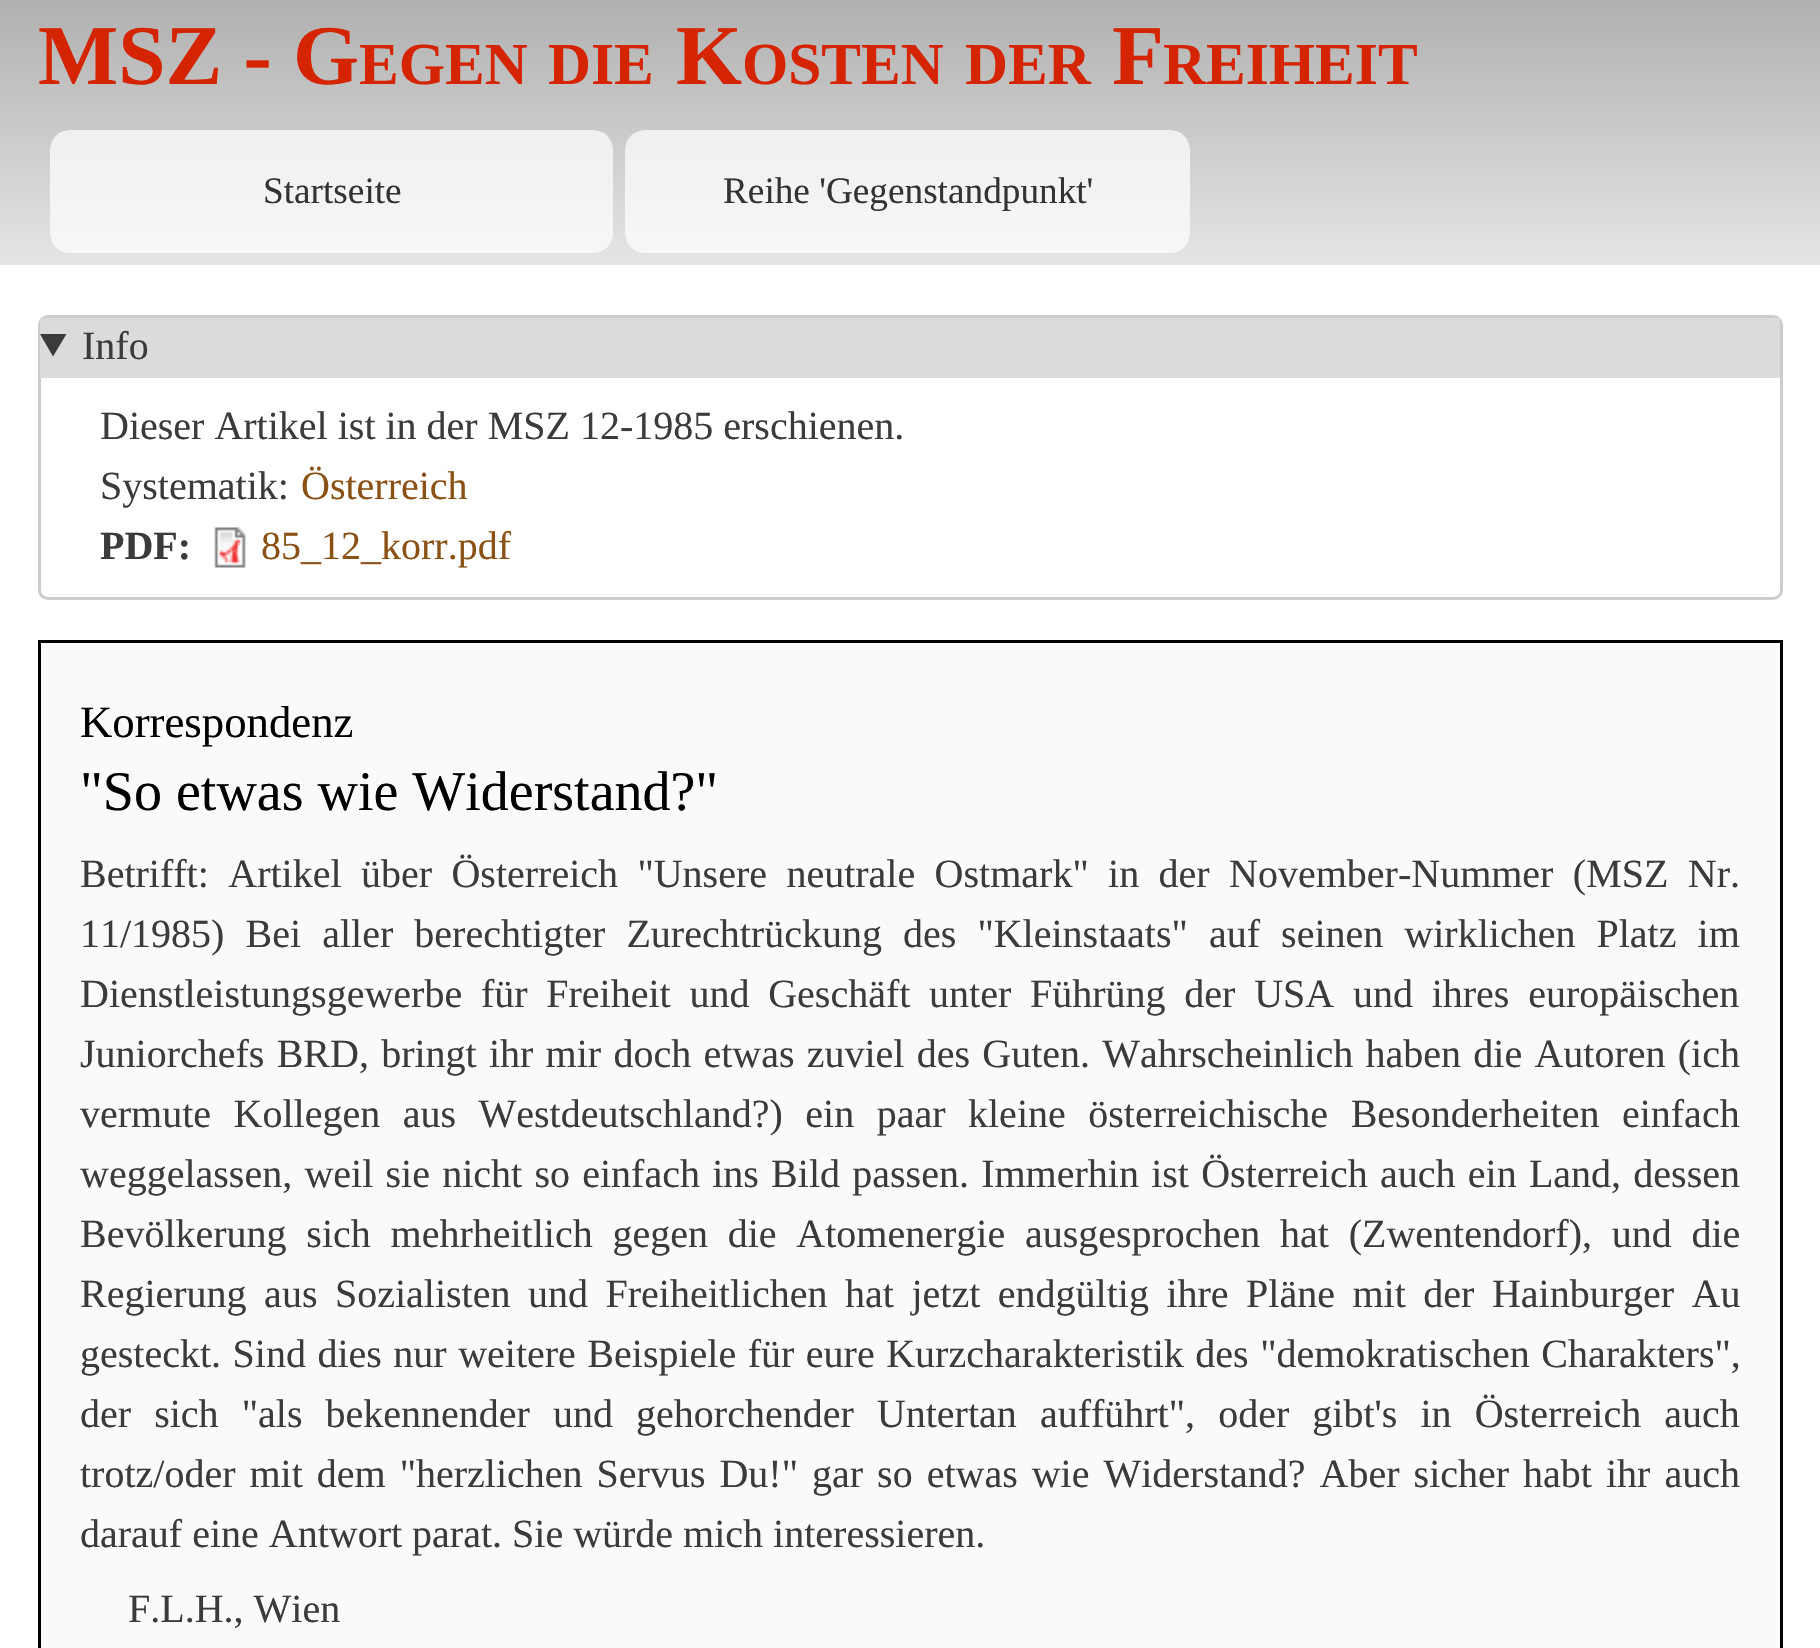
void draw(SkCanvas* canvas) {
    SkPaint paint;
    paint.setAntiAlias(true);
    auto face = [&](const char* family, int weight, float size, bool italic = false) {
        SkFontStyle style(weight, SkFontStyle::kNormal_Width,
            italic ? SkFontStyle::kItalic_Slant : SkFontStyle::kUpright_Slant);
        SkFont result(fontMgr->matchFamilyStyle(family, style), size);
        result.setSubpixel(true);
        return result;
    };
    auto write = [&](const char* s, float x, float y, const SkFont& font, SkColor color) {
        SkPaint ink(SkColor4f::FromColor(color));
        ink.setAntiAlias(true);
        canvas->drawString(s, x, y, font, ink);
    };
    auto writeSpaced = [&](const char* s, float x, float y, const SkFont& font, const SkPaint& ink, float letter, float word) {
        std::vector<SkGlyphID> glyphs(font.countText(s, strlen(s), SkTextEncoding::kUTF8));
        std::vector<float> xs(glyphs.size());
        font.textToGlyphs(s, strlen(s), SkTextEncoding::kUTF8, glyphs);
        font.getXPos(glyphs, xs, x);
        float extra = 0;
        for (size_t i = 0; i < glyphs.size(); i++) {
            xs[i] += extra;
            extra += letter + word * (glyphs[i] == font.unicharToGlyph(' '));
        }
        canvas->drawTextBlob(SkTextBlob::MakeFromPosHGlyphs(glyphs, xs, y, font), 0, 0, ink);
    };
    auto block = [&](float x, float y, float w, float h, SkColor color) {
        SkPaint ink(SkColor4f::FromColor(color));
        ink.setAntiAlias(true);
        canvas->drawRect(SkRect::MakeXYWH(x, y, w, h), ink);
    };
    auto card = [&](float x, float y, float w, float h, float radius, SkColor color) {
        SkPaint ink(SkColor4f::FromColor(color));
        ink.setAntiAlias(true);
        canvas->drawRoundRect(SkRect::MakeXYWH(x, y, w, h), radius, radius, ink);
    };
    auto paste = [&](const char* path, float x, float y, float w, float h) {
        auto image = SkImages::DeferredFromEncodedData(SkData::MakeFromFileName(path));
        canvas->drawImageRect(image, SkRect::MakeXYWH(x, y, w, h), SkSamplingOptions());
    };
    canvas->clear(SK_ColorWHITE);
    {
        const SkColor colors[] = {SkColorSetRGB(176, 176, 176), SkColorSetRGB(229, 229, 229)};
        const float stops[] = {0, 1};
        const SkPoint ends[] = {{910, 0}, {910, 265}};
        paint.setShader(SkGradientShader::MakeLinear(ends, colors, stops, 2, SkTileMode::kClamp));
        paint.setAlpha(255);
    }
    canvas->drawRect(SkRect::MakeXYWH(0, 0, 1820, 265), paint);
    auto kFont1 = face("Liberation Serif", 700, 85);
    write("MSZ - G", 38, 84, kFont1, SkColorSetRGB(213, 36, 1));
    auto kFont2 = face("Liberation Serif", 700, 59.5f);
    write("EGEN", 359, 84, kFont2, SkColorSetRGB(213, 36, 1));
    write("DIE", 548, 84, kFont2, SkColorSetRGB(213, 36, 1));
    write("K", 676, 84, kFont1, SkColorSetRGB(213, 36, 1));
    write("OSTEN", 742, 84, kFont2, SkColorSetRGB(213, 36, 1));
    write("DER", 965, 84, kFont2, SkColorSetRGB(213, 36, 1));
    write("F", 1112, 84, kFont1, SkColorSetRGB(213, 36, 1));
    write("REIHEIT", 1163, 84, kFont2, SkColorSetRGB(213, 36, 1));
    card(50, 130, 563, 123, 20, SkColorSetARGB(179, 255, 255, 255));
    auto kFont3 = face("Liberation Serif", 400, 37.25f);
    write("Startseite", 263, 203, kFont3, SkColorSetRGB(51, 51, 51));
    card(625, 130, 565, 123, 20, SkColorSetARGB(179, 255, 255, 255));
    write("Reihe 'Gegenstandpunkt'", 723, 203, kFont3, SkColorSetRGB(51, 51, 51));
    paint.setStyle(SkPaint::kStroke_Style);
    paint.setStrokeWidth(3);
    paint.setShader(nullptr);
    paint.setColor(SkColorSetRGB(204, 204, 204));
    canvas->drawRoundRect(SkRect::MakeXYWH(39.5f, 316.5f, 1742, 282), 8.5f, 8.5f, paint);
    block(40, 318, 1740, 60, SkColorSetRGB(219, 219, 219));
    paint.setStyle(SkPaint::kFill_Style);
    paint.setColor(SkColorSetRGB(59, 59, 59));
    canvas->drawPath(SkPathBuilder().moveTo(40, 334).lineTo(66.5f, 334).lineTo(53, 356.5f).close().detach(), paint);
    auto kFont4 = face("Liberation Serif", 400, 40);
    write("Info", 82, 359, kFont4, SkColorSetRGB(59, 59, 59));
    write("Dieser Artikel ist in der MSZ 12-1985 erschienen.", 100, 439, kFont4, SkColorSetRGB(59, 59, 59));
    write("Systematik:", 100, 499, kFont4, SkColorSetRGB(59, 59, 59));
    write("Österreich", 301, 499, kFont4, SkColorSetRGB(138, 80, 20));
    auto kFont5 = face("Liberation Serif", 700, 40);
    write("PDF:", 100, 559, kFont5, SkColorSetRGB(59, 59, 59));
    paste("pic1.png", 214, 527, 32, 41);
    write("85_12_korr.pdf", 261, 559, kFont4, SkColorSetRGB(138, 80, 20));
    paint.setColor(SkColorSetRGB(250, 250, 250));
    canvas->drawRect(SkRect::MakeXYWH(39.5f, 641.5f, 1742, 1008), paint);
    paint.setStyle(SkPaint::kStroke_Style);
    paint.setColor(SK_ColorBLACK);
    canvas->drawRect(SkRect::MakeXYWH(39.5f, 641.5f, 1742, 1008), paint);
    auto kFont6 = face("Liberation Serif", 400, 44.75f);
    write("Korrespondenz", 80, 737, kFont6, SK_ColorBLACK);
    auto kFont7 = face("Liberation Serif", 400, 56);
    write("\"So etwas wie Widerstand?\"", 80, 810, kFont7, SK_ColorBLACK);
    paint.setStyle(SkPaint::kFill_Style);
    paint.setColor(SkColorSetRGB(59, 59, 59));
    writeSpaced("Betrifft: Artikel über Österreich \"Unsere neutrale Ostmark\" in der November-Nummer (MSZ Nr.", 80, 887, kFont4, paint, 0, 9.4f);
    writeSpaced("11/1985) Bei aller berechtigter Zurechtrückung des \"Kleinstaats\" auf seinen wirklichen Platz im", 80, 947, kFont4, paint, 0, 11.1f);
    writeSpaced("Dienstleistungsgewerbe für Freiheit und Geschäft unter Führüng der USA und ihres europäischen", 80, 1007, kFont4, paint, 0, 8.75f);
    writeSpaced("Juniorchefs BRD, bringt ihr mir doch etwas zuviel des Guten. Wahrscheinlich haben die Autoren (ich", 80, 1067, kFont4, paint, 0, 2.25f);
    writeSpaced("vermute Kollegen aus Westdeutschland?) ein paar kleine österreichische Besonderheiten einfach", 80, 1127, kFont4, paint, 0, 12.5f);
    writeSpaced("weggelassen, weil sie nicht so einfach ins Bild passen. Immerhin ist Österreich auch ein Land, dessen", 80, 1187, kFont4, paint, 0, 2.25f);
    writeSpaced("Bevölkerung sich mehrheitlich gegen die Atomenergie ausgesprochen hat (Zwentendorf), und die", 80, 1247, kFont4, paint, 0, 9.75f);
    writeSpaced("Regierung aus Sozialisten und Freiheitlichen hat jetzt endgültig ihre Pläne mit der Hainburger Au", 80, 1307, kFont4, paint, 0, 7.5f);
    writeSpaced("gesteckt. Sind dies nur weitere Beispiele für eure Kurzcharakteristik des \"demokratischen Charakters\",", 80, 1367, kFont4, paint, 0, 1.5f);
    writeSpaced("der sich \"als bekennender und gehorchender Untertan aufführt\", oder gibt's in Österreich auch", 80, 1427, kFont4, paint, 0, 13.1f);
    writeSpaced("trotz/oder mit dem \"herzlichen Servus Du!\" gar so etwas wie Widerstand? Aber sicher habt ihr auch", 80, 1487, kFont4, paint, 0, 4);
    write("darauf eine Antwort parat. Sie würde mich interessieren.", 80, 1547, kFont4, SkColorSetRGB(59, 59, 59));
    write("F.L.H., Wien", 128, 1622, kFont4, SkColorSetRGB(59, 59, 59));
}
